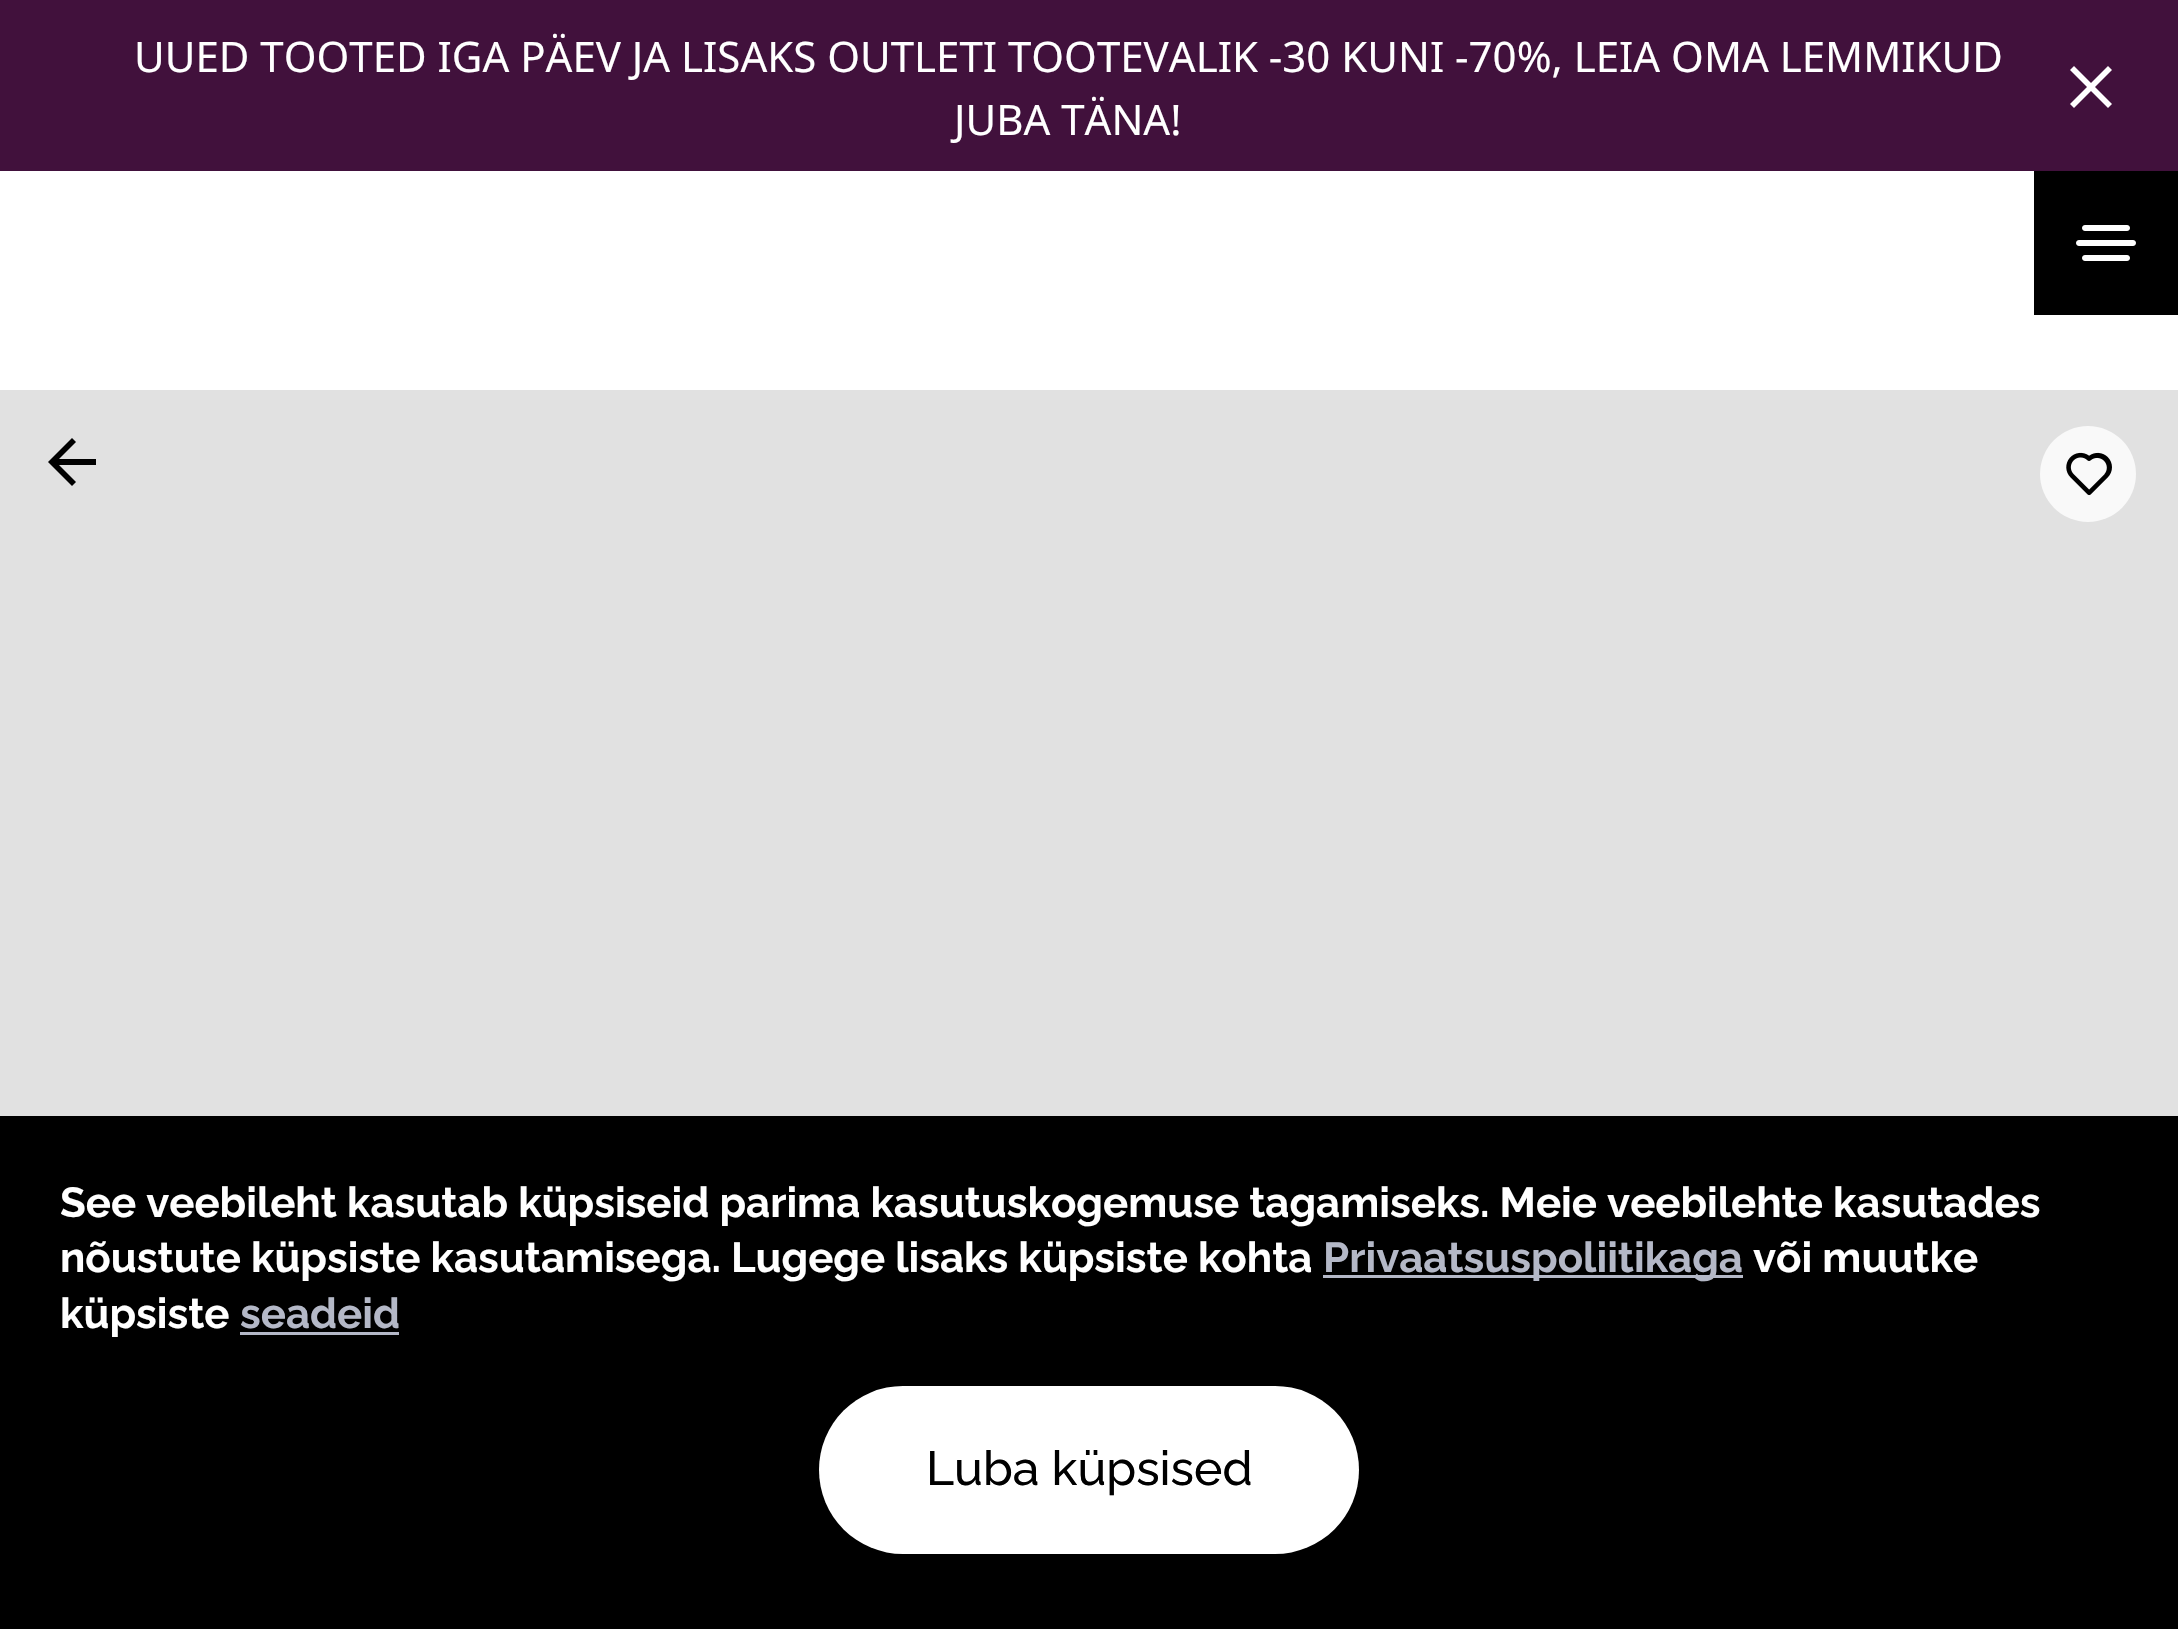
void draw(SkCanvas* canvas) {
    SkPaint paint;
    paint.setAntiAlias(true);
    auto face = [&](const char* family, int weight, float size, bool italic = false) {
        SkFontStyle style(weight, SkFontStyle::kNormal_Width,
            italic ? SkFontStyle::kItalic_Slant : SkFontStyle::kUpright_Slant);
        SkFont result(fontMgr->matchFamilyStyle(family, style), size);
        result.setSubpixel(true);
        return result;
    };
    auto write = [&](const char* s, float x, float y, const SkFont& font, SkColor color) {
        SkPaint ink(SkColor4f::FromColor(color));
        ink.setAntiAlias(true);
        canvas->drawString(s, x, y, font, ink);
    };
    auto block = [&](float x, float y, float w, float h, SkColor color) {
        SkPaint ink(SkColor4f::FromColor(color));
        ink.setAntiAlias(true);
        canvas->drawRect(SkRect::MakeXYWH(x, y, w, h), ink);
    };
    auto card = [&](float x, float y, float w, float h, float radius, SkColor color) {
        SkPaint ink(SkColor4f::FromColor(color));
        ink.setAntiAlias(true);
        canvas->drawRoundRect(SkRect::MakeXYWH(x, y, w, h), radius, radius, ink);
    };
    auto paste = [&](const char* path, float x, float y, float w, float h) {
        auto image = SkImages::DeferredFromEncodedData(SkData::MakeFromFileName(path));
        canvas->drawImageRect(image, SkRect::MakeXYWH(x, y, w, h), SkSamplingOptions());
    };
    canvas->clear(SK_ColorWHITE);
    block(0, 0, 2178, 171, SkColorSetRGB(65, 17, 60));
    auto kFont1 = face("Noto Sans", 400, 42);
    write("UUED TOOTED IGA PÄEV JA LISAKS OUTLETI TOOTEVALIK -30 KUNI -70%, LEIA OMA LEMMIKUD", 134, 72, kFont1, SK_ColorWHITE);
    write("JUBA TÄNA!", 954, 135, kFont1, SK_ColorWHITE);
    paint.setColor(SK_ColorWHITE);
    canvas->drawPath(SkPathBuilder().moveTo(2112, 70).lineTo(2108, 66).lineTo(2091, 83).lineTo(2074, 66).lineTo(2070, 70).lineTo(2087, 87).lineTo(2070, 104).lineTo(2074, 108).lineTo(2091, 91).lineTo(2108, 108).lineTo(2112, 104).lineTo(2095, 87).close().detach(), paint);
    block(2034, 171, 144, 144, SK_ColorBLACK);
    paste("pic1.png", 2076, 225, 60, 36);
    block(0, 390, 2178, 726, SkColorSetRGB(225, 225, 225));
    paint.setColor(SK_ColorBLACK);
    canvas->drawPath(SkPathBuilder().moveTo(72, 486).lineTo(76, 482).lineTo(59, 465).lineTo(96, 465).lineTo(96, 459).lineTo(59, 459).lineTo(76, 442).lineTo(72, 438).lineTo(48, 462).close().detach(), paint);
    paint.setColor(SkColorSetRGB(249, 249, 249));
    canvas->drawCircle(2088, 474, 48, paint);
    paste("pic2.png", 2066, 452, 46, 44);
    block(0, 1116, 2178, 513, SK_ColorBLACK);
    auto kFont2 = face("Raleway", 700, 42);
    write("See veebileht kasutab küpsiseid parima kasutuskogemuse tagamiseks. Meie veebilehte kasutades", 60, 1217, kFont2, SK_ColorWHITE);
    write("nõustute küpsiste kasutamisega. Lugege lisaks küpsiste kohta", 60, 1272, kFont2, SK_ColorWHITE);
    block(1323, 1275, 420, 3, SkColorSetRGB(180, 184, 199));
    write("Privaatsuspoliitikaga", 1323, 1272, kFont2, SkColorSetRGB(180, 184, 199));
    write("või muutke", 1753, 1272, kFont2, SK_ColorWHITE);
    write("küpsiste", 60, 1328, kFont2, SK_ColorWHITE);
    write("seadeid", 240, 1328, kFont2, SkColorSetRGB(180, 184, 199));
    block(240, 1332, 159, 3, SkColorSetRGB(180, 184, 199));
    card(819, 1386, 540, 168, 84, SK_ColorWHITE);
    auto kFont3 = face("Raleway", 500, 48);
    write("Luba küpsised", 926, 1485, kFont3, SK_ColorBLACK);
}
